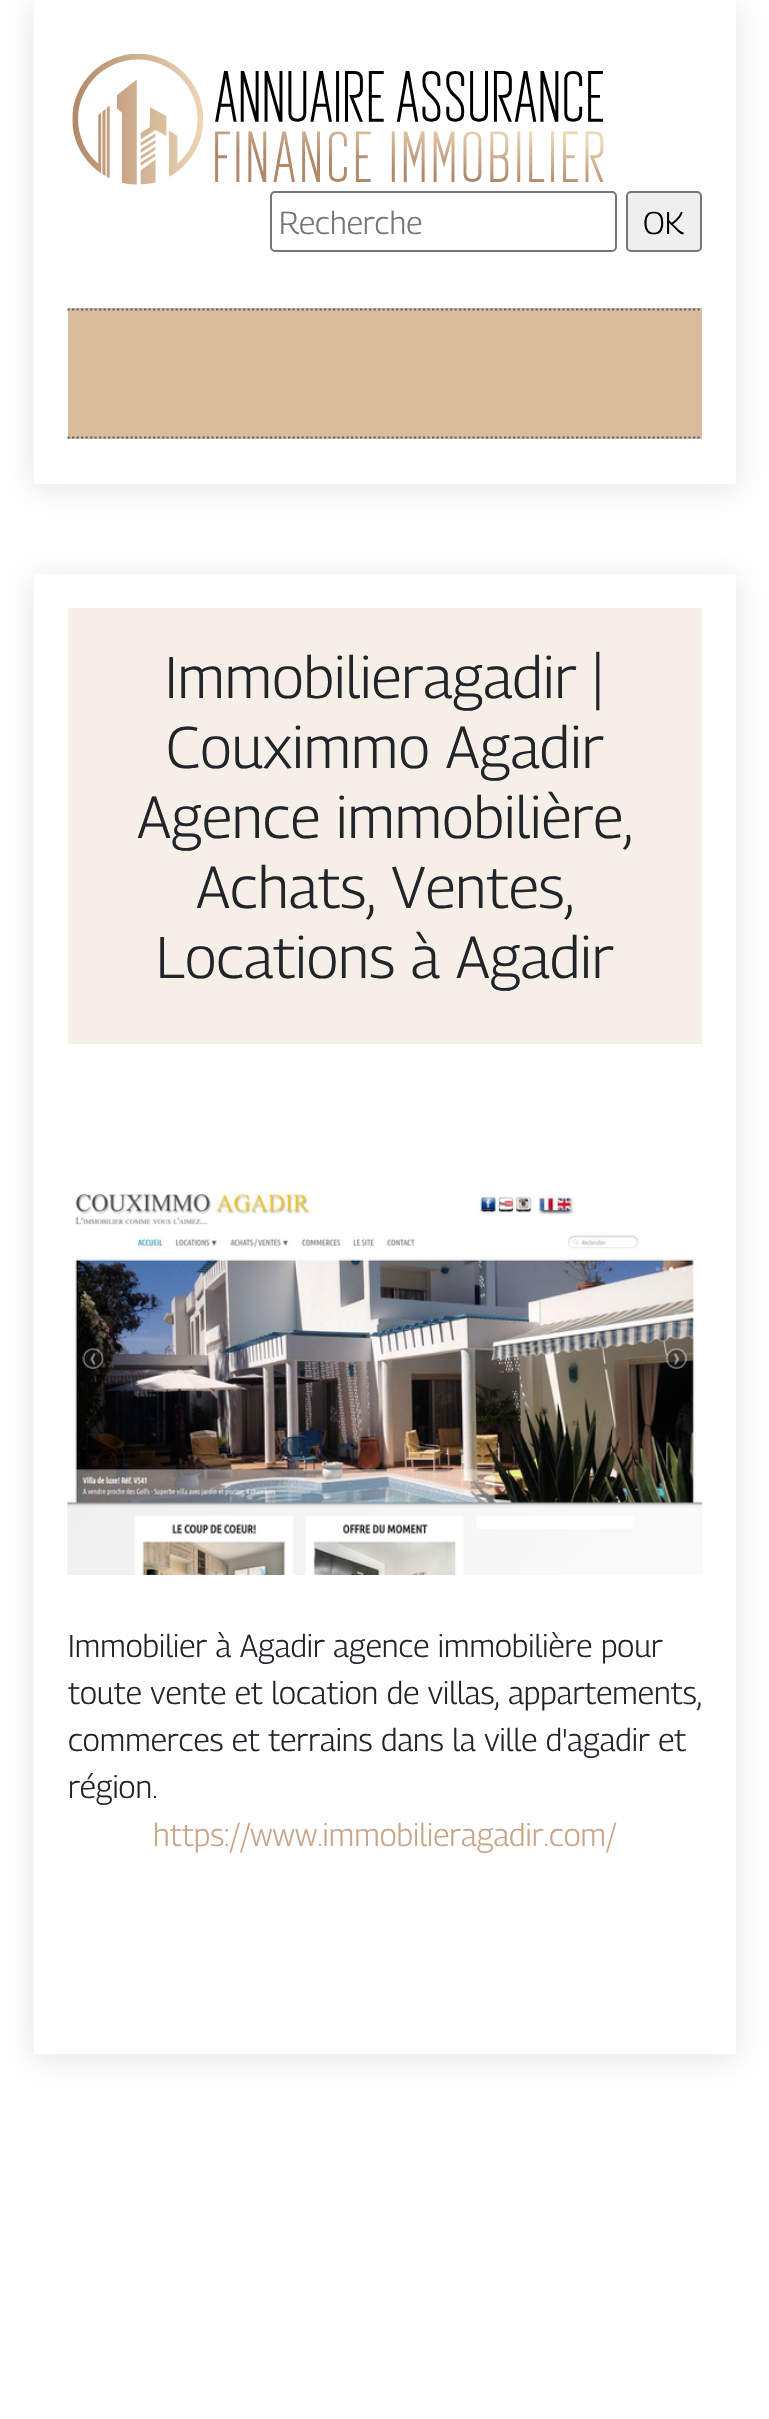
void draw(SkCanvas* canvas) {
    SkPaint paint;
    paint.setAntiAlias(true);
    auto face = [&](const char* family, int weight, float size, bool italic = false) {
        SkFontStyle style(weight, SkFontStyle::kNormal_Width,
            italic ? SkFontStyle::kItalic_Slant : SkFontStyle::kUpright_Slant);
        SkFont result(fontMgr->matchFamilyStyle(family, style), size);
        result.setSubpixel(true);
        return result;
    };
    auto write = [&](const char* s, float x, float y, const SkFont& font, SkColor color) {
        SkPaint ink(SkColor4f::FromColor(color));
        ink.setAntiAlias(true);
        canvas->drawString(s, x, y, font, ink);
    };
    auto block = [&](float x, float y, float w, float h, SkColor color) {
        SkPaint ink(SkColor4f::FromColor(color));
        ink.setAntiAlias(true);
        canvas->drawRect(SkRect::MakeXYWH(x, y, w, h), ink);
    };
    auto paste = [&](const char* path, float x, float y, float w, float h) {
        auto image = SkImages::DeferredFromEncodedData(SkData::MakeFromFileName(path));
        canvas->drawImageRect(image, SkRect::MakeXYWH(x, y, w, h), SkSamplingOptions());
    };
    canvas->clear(SK_ColorWHITE);
    paint.setColor(SkColorSetARGB(26, 0, 0, 0));
    paint.setMaskFilter(SkMaskFilter::MakeBlur(kNormal_SkBlurStyle, 14.5f));
    canvas->drawRect(SkRect::MakeXYWH(34, 5, 702, 483), paint);
    paint.setMaskFilter(nullptr);
    block(34, 0, 702, 484, SK_ColorWHITE);
    paste("pic1.png", 72, 53, 532, 132);
    paint.setStyle(SkPaint::kStroke_Style);
    paint.setStrokeWidth(2);
    paint.setColor(SkColorSetRGB(118, 118, 118));
    canvas->drawRoundRect(SkRect::MakeXYWH(271, 192, 345, 59), 4, 4, paint);
    auto kFont1 = face("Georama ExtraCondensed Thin", 100, 31.5f);
    write("Recherche", 279, 234, kFont1, SkColorSetRGB(117, 117, 117));
    paint.setStyle(SkPaint::kFill_Style);
    paint.setColor(SkColorSetRGB(239, 239, 239));
    canvas->drawRoundRect(SkRect::MakeXYWH(627, 192, 74, 59), 4, 4, paint);
    paint.setStyle(SkPaint::kStroke_Style);
    paint.setColor(SkColorSetRGB(118, 118, 118));
    canvas->drawRoundRect(SkRect::MakeXYWH(627, 192, 74, 59), 4, 4, paint);
    write("OK", 643, 234, kFont1, SK_ColorBLACK);
    block(68, 308, 634, 131, SkColorSetRGB(216, 188, 156));
    paint.setStrokeWidth(2.2f);
    paint.setColor(SkColorSetRGB(102, 102, 102));
    paint.setPathEffect(SkDashPathEffect::Make({{2.25f, 2.25f}}, 0));
    canvas->drawPath(SkPathBuilder().moveTo(67.5f, 309.5f).lineTo(702, 309.5f).detach(), paint);
    paint.setPathEffect(nullptr);
    paint.setPathEffect(SkDashPathEffect::Make({{2.25f, 2.25f}}, 0));
    canvas->drawPath(SkPathBuilder().moveTo(67.5f, 437.5f).lineTo(702, 437.5f).detach(), paint);
    paint.setPathEffect(nullptr);
    paint.setStyle(SkPaint::kFill_Style);
    paint.setColor(SkColorSetARGB(26, 0, 0, 0));
    paint.setMaskFilter(SkMaskFilter::MakeBlur(kNormal_SkBlurStyle, 14.5f));
    canvas->drawRect(SkRect::MakeXYWH(34, 578, 702, 1481), paint);
    paint.setMaskFilter(nullptr);
    block(34, 574, 702, 1480, SK_ColorWHITE);
    block(68, 608, 634, 436, SkColorSetRGB(246, 239, 232));
    auto kFont2 = face("Georama ExtraCondensed Thin", 100, 58.5f);
    write("Immobilieragadir |", 165, 698, kFont2, SkColorSetRGB(33, 37, 41));
    write("Couximmo Agadir", 166, 768, kFont2, SkColorSetRGB(33, 37, 41));
    write("Agence immobilière,", 137, 838, kFont2, SkColorSetRGB(33, 37, 41));
    write("Achats, Ventes,", 196, 908, kFont2, SkColorSetRGB(33, 37, 41));
    write("Locations à Agadir", 156, 978, kFont2, SkColorSetRGB(33, 37, 41));
    paste("pic2.png", 67, 1193, 635, 382);
    write("Immobilier à Agadir agence immobilière pour", 68, 1657, kFont1, SkColorSetRGB(33, 37, 41));
    write("toute vente et location de villas, appartements,", 68, 1704, kFont1, SkColorSetRGB(33, 37, 41));
    write("commerces et terrains dans la ville d'agadir et", 68, 1751, kFont1, SkColorSetRGB(33, 37, 41));
    write("région.", 68, 1798, kFont1, SkColorSetRGB(33, 37, 41));
    write("https://www.immobilieragadir.com/", 153, 1846, kFont1, SkColorSetRGB(199, 166, 135));
}
